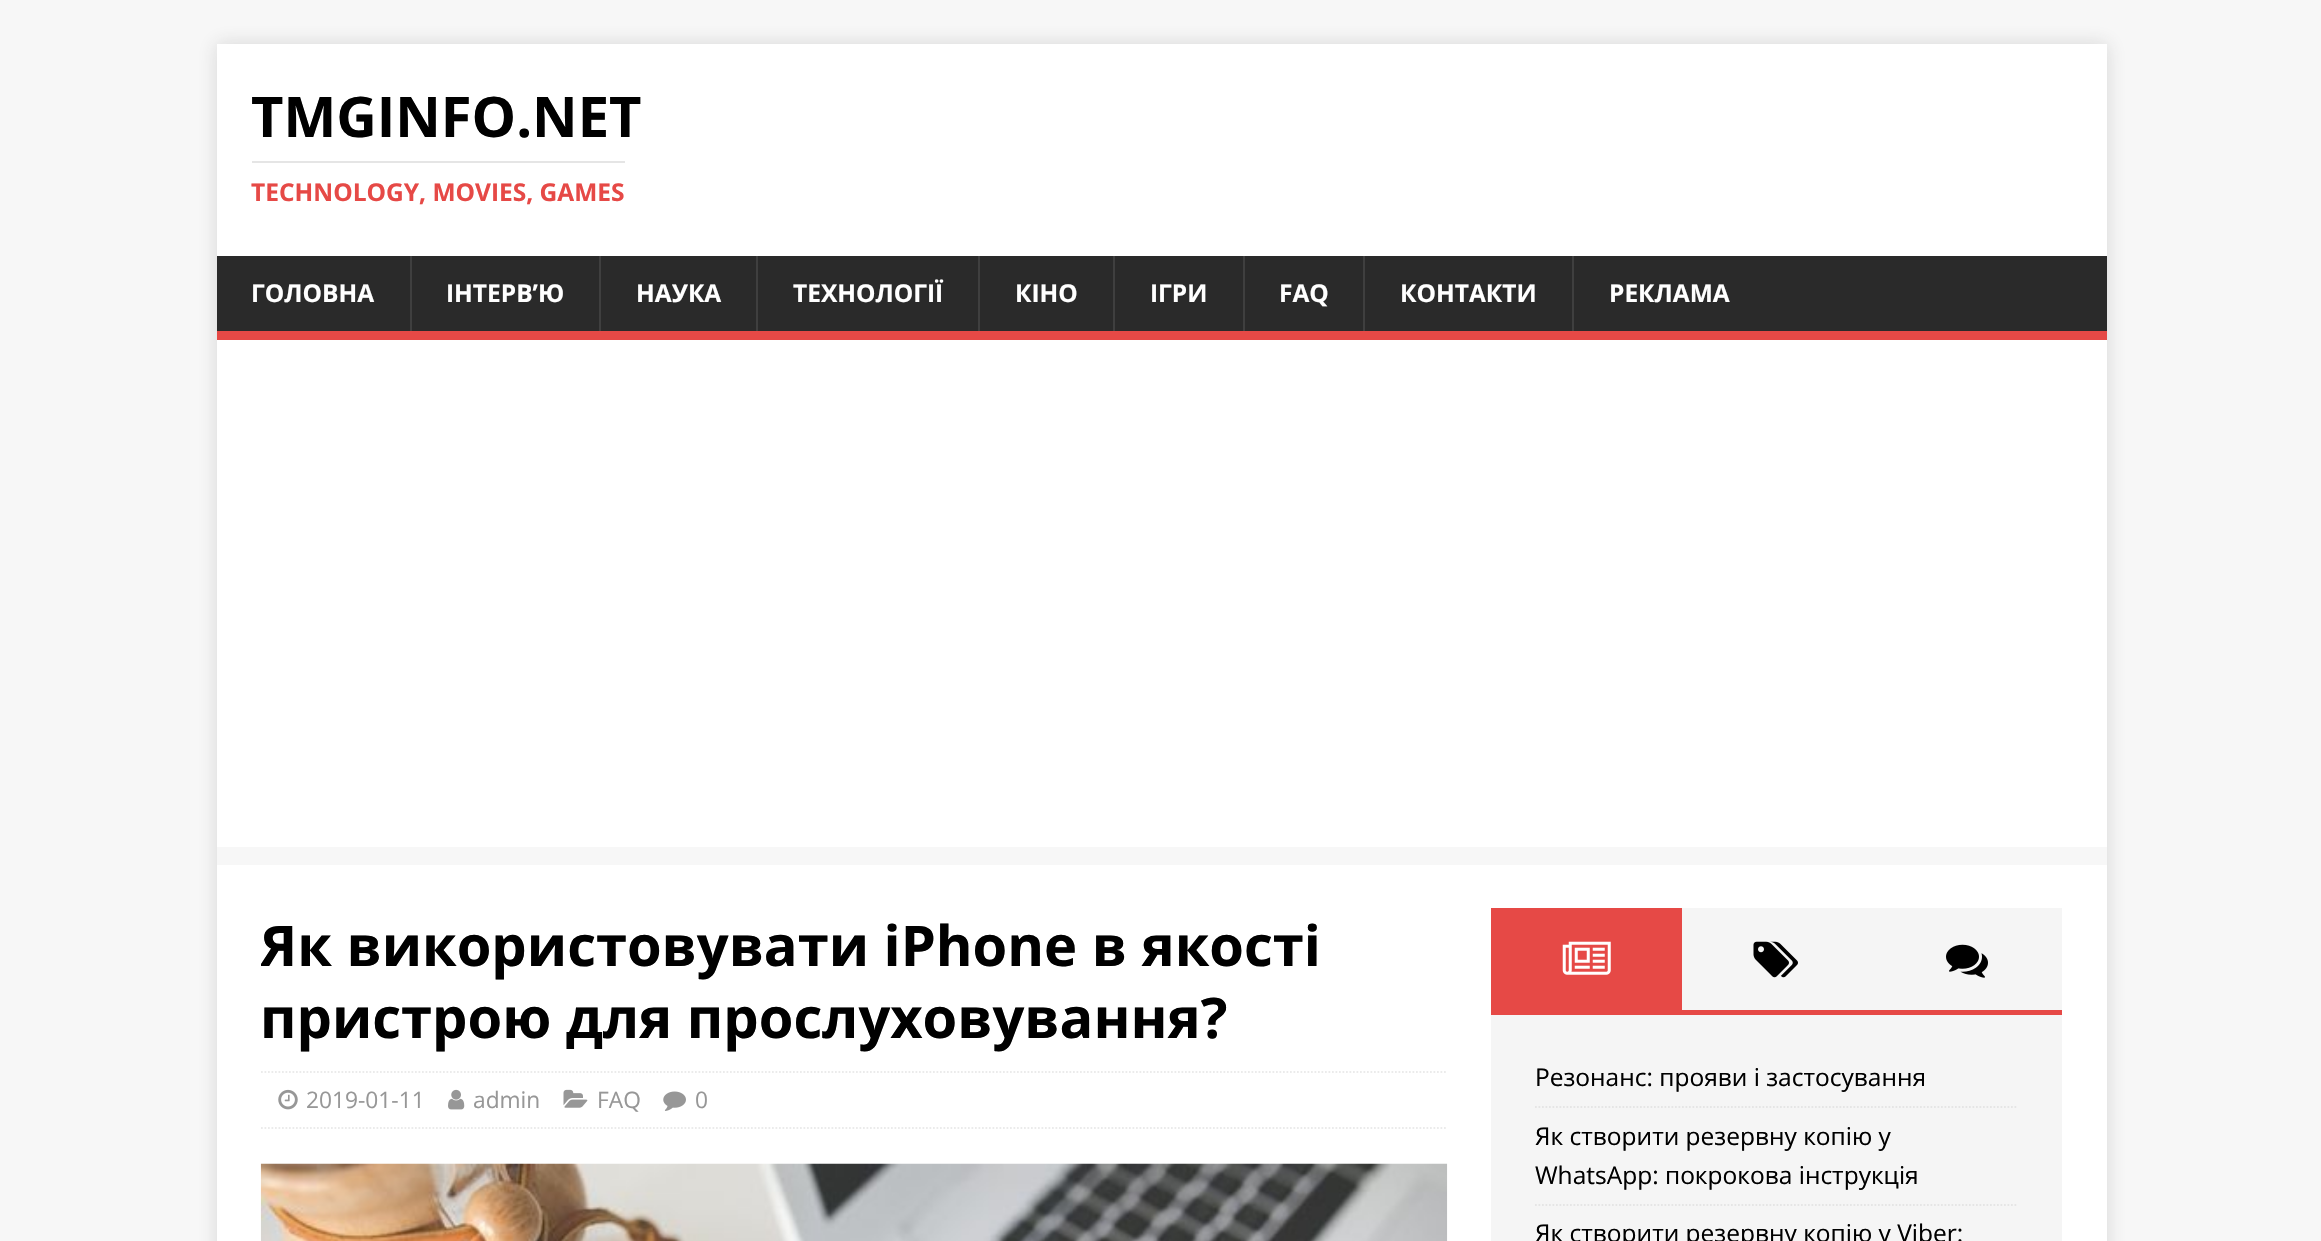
void draw(SkCanvas* canvas) {
    SkPaint paint;
    paint.setAntiAlias(true);
    auto face = [&](const char* family, int weight, float size, bool italic = false) {
        SkFontStyle style(weight, SkFontStyle::kNormal_Width,
            italic ? SkFontStyle::kItalic_Slant : SkFontStyle::kUpright_Slant);
        SkFont result(fontMgr->matchFamilyStyle(family, style), size);
        result.setSubpixel(true);
        return result;
    };
    auto write = [&](const char* s, float x, float y, const SkFont& font, SkColor color) {
        SkPaint ink(SkColor4f::FromColor(color));
        ink.setAntiAlias(true);
        canvas->drawString(s, x, y, font, ink);
    };
    auto block = [&](float x, float y, float w, float h, SkColor color) {
        SkPaint ink(SkColor4f::FromColor(color));
        ink.setAntiAlias(true);
        canvas->drawRect(SkRect::MakeXYWH(x, y, w, h), ink);
    };
    auto paste = [&](const char* path, float x, float y, float w, float h) {
        auto image = SkImages::DeferredFromEncodedData(SkData::MakeFromFileName(path));
        canvas->drawImageRect(image, SkRect::MakeXYWH(x, y, w, h), SkSamplingOptions());
    };
    canvas->clear(SkColorSetRGB(247, 247, 247));
    canvas->save();
    canvas->clipPath(SkPathBuilder(SkPathFillType::kEvenOdd).moveTo(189, 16).lineTo(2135, 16).lineTo(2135, 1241).lineTo(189, 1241).close().moveTo(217, 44).lineTo(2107, 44).lineTo(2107, 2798).lineTo(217, 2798).close().detach(), true);
    paint.setColor(SkColorSetARGB(43, 50, 50, 50));
    paint.setMaskFilter(SkMaskFilter::MakeBlur(kNormal_SkBlurStyle, 9));
    canvas->drawRect(SkRect::MakeXYWH(217, 44, 1890, 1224), paint);
    paint.setMaskFilter(nullptr);
    canvas->restore();
    block(217, 44, 1890, 803, SK_ColorWHITE);
    auto kFont1 = face("Open Sans", 700, 56);
    write("TMGINFO.NET", 251, 137, kFont1, SK_ColorBLACK);
    block(252, 161, 373, 2, SkColorSetRGB(229, 229, 229));
    auto kFont2 = face("Open Sans", 700, 24.5f);
    write("ТECHNOLOGY, MOVIES, GAMES", 251, 201, kFont2, SkColorSetRGB(230, 73, 70));
    block(217, 256, 1890, 75, SkColorSetRGB(42, 42, 42));
    block(217, 331, 1890, 9, SkColorSetRGB(230, 73, 70));
    write("ГОЛОВНА", 251, 302, kFont2, SK_ColorWHITE);
    block(410, 256, 2, 75, SkColorSetRGB(63, 63, 63));
    write("ІНТЕРВ’Ю", 446, 302, kFont2, SK_ColorWHITE);
    block(599, 256, 2, 75, SkColorSetRGB(63, 63, 63));
    write("НАУКА", 636, 302, kFont2, SK_ColorWHITE);
    block(756, 256, 2, 75, SkColorSetRGB(63, 63, 63));
    write("ТЕХНОЛОГІЇ", 793, 302, kFont2, SK_ColorWHITE);
    block(978, 256, 2, 75, SkColorSetRGB(63, 63, 63));
    write("КІНО", 1015, 302, kFont2, SK_ColorWHITE);
    block(1113, 256, 2, 75, SkColorSetRGB(63, 63, 63));
    write("ІГРИ", 1150, 302, kFont2, SK_ColorWHITE);
    block(1243, 256, 2, 75, SkColorSetRGB(63, 63, 63));
    write("FAQ", 1279, 302, kFont2, SK_ColorWHITE);
    block(1363, 256, 2, 75, SkColorSetRGB(63, 63, 63));
    write("КОНТАКТИ", 1400, 302, kFont2, SK_ColorWHITE);
    block(1572, 256, 2, 75, SkColorSetRGB(63, 63, 63));
    write("РЕКЛАМА", 1609, 302, kFont2, SK_ColorWHITE);
    block(217, 865, 1890, 376, SK_ColorWHITE);
    canvas->save();
    canvas->clipRect(SkRect::MakeXYWH(261, 908, 1186, 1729));
    write("Як використовувати iPhone в якості", 260, 966, kFont1, SK_ColorBLACK);
    canvas->restore();
    write("пристрою для прослуховування?", 260, 1038, kFont1, SK_ColorBLACK);
    paint.setStyle(SkPaint::kStroke_Style);
    paint.setStrokeWidth(1.8f);
    paint.setColor(SkColorSetRGB(235, 235, 235));
    paint.setPathEffect(SkDashPathEffect::Make({{1.75f, 1.75f}}, 0));
    canvas->drawPath(SkPathBuilder().moveTo(261, 1072).lineTo(1447, 1072).detach(), paint);
    paint.setPathEffect(nullptr);
    paint.setPathEffect(SkDashPathEffect::Make({{1.75f, 1.75f}}, 0));
    canvas->drawPath(SkPathBuilder().moveTo(261, 1128).lineTo(1447, 1128).detach(), paint);
    paint.setPathEffect(nullptr);
    paste("pic1.png", 278, 1089, 20, 21);
    auto kFont3 = face("Open Sans", 400, 22.75f);
    write("2019-01-11", 306, 1108, kFont3, SkColorSetRGB(151, 151, 151));
    paste("pic2.png", 448, 1089, 17, 21);
    write("admin", 473, 1108, kFont3, SkColorSetRGB(151, 151, 151));
    paste("pic3.png", 563, 1089, 25, 19);
    write("FAQ", 597, 1108, kFont3, SkColorSetRGB(151, 151, 151));
    paste("pic4.png", 663, 1091, 23, 20);
    write("0", 695, 1108, kFont3, SkColorSetRGB(151, 151, 151));
    paste("pic5.png", 260, 1163, 1188, 78);
    block(1491, 1010, 571, 5, SkColorSetRGB(230, 73, 70));
    block(1491, 908, 191, 102, SkColorSetRGB(230, 73, 70));
    paste("pic6.png", 1562, 941, 49, 34);
    block(1682, 908, 380, 102, SkColorSetRGB(245, 245, 245));
    paste("pic7.png", 1753, 941, 45, 37);
    paste("pic8.png", 1946, 944, 42, 34);
    block(1491, 1015, 571, 226, SkColorSetRGB(245, 245, 245));
    paint.setColor(SkColorSetRGB(229, 229, 229));
    paint.setPathEffect(SkDashPathEffect::Make({{1.75f, 1.75f}}, 0));
    canvas->drawPath(SkPathBuilder().moveTo(1535, 1107).lineTo(2018, 1107).detach(), paint);
    paint.setPathEffect(nullptr);
    auto kFont4 = face("Open Sans", 400, 24.5f);
    write("Резонанс: прояви і застосування", 1535, 1086, kFont4, SK_ColorBLACK);
    paint.setPathEffect(SkDashPathEffect::Make({{1.75f, 1.75f}}, 0));
    canvas->drawPath(SkPathBuilder().moveTo(1535, 1205).lineTo(2018, 1205).detach(), paint);
    paint.setPathEffect(nullptr);
    write("Як створити резервну копію у", 1535, 1145, kFont4, SK_ColorBLACK);
    write("WhatsApp: покрокова інструкція", 1535, 1184, kFont4, SK_ColorBLACK);
    write("Як створити резервну копію у Viber:", 1535, 1242, kFont4, SK_ColorBLACK);
}
